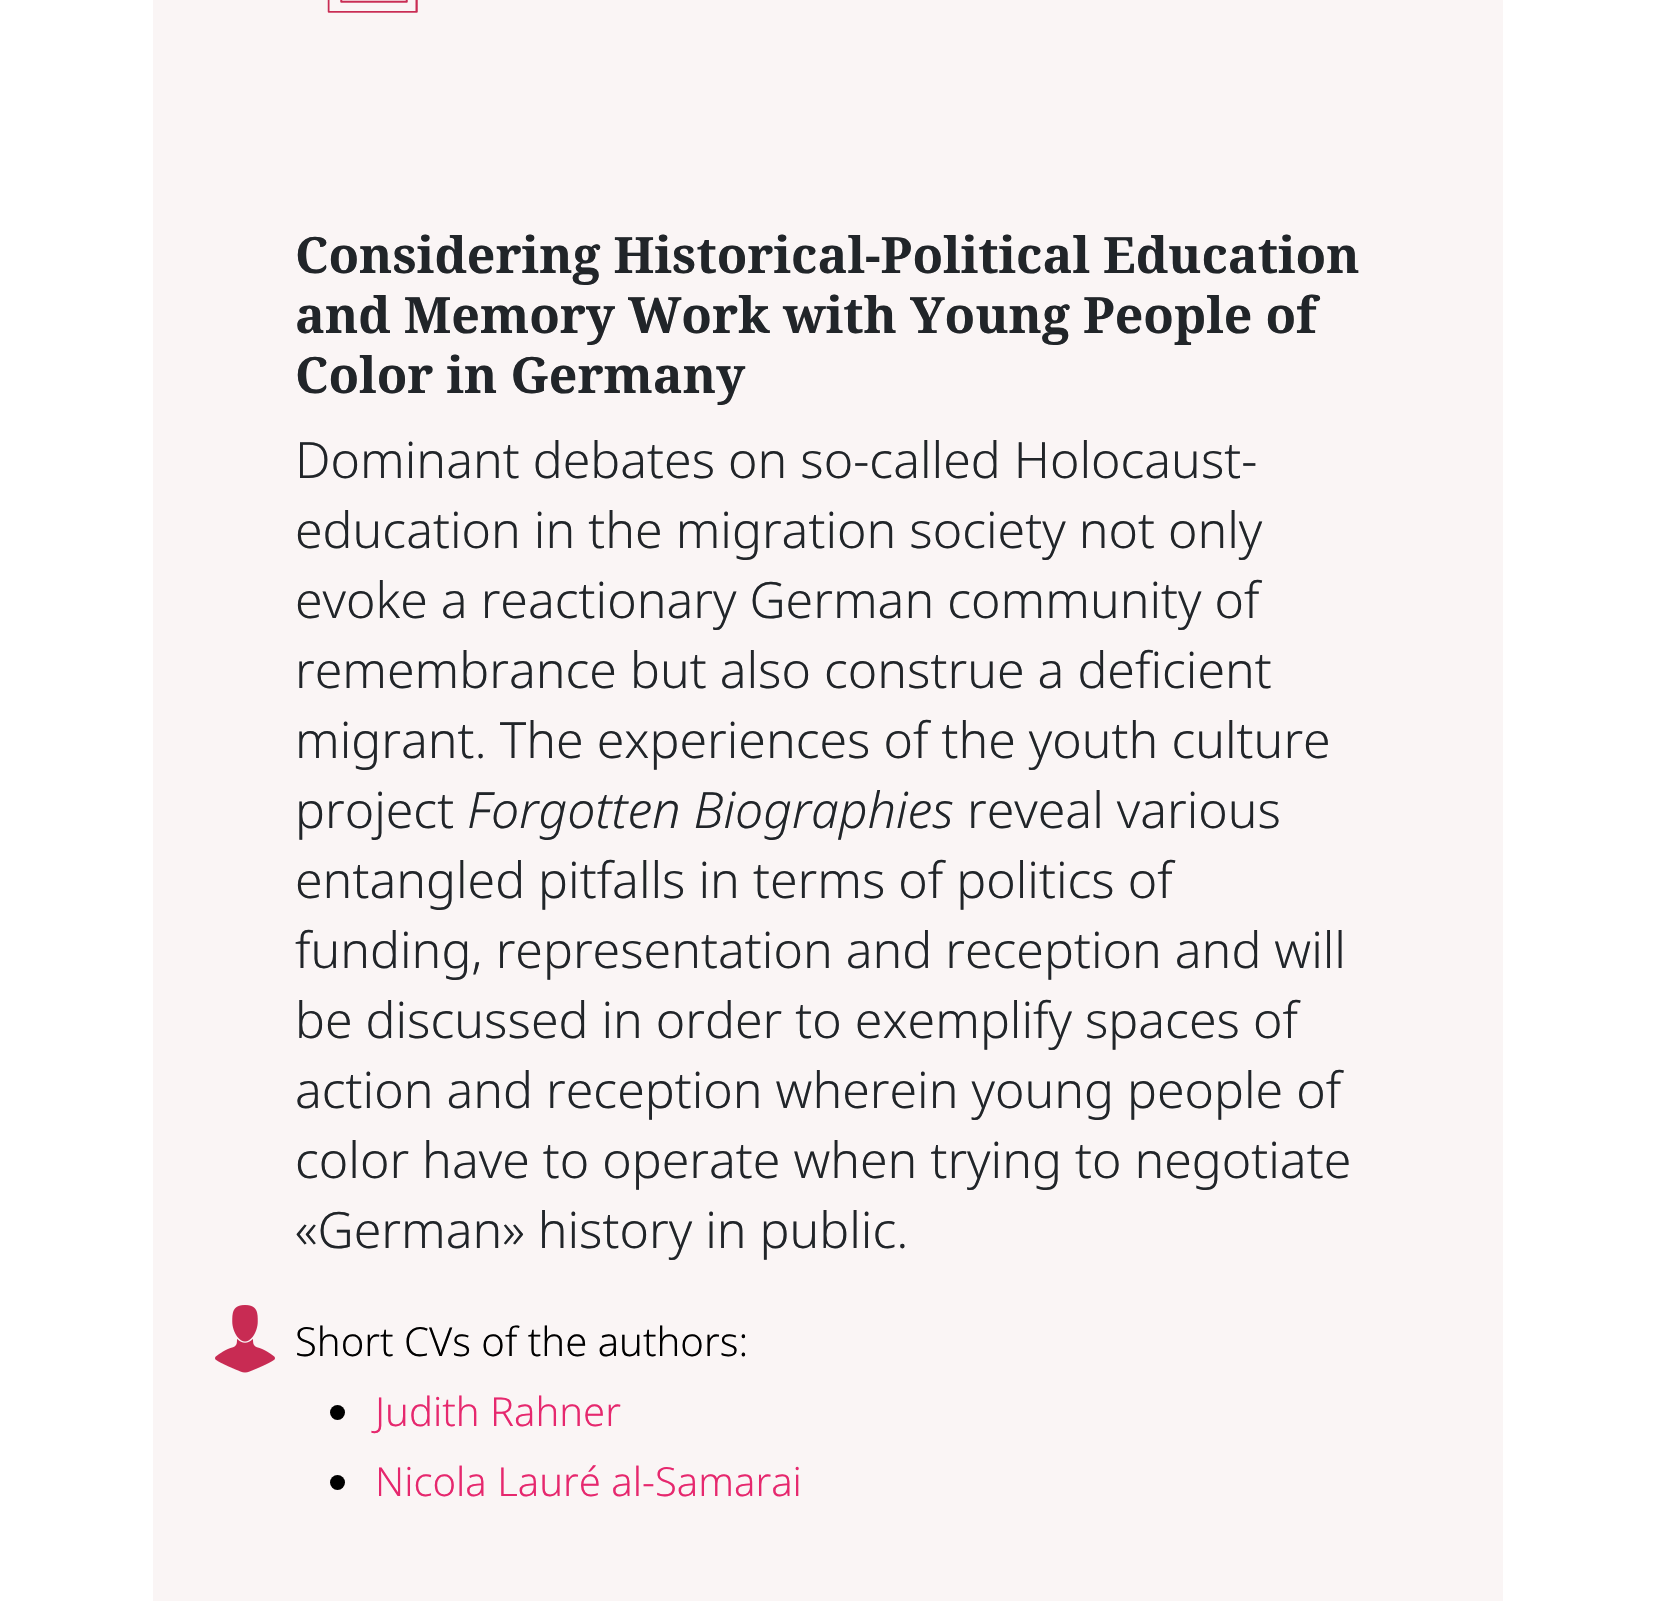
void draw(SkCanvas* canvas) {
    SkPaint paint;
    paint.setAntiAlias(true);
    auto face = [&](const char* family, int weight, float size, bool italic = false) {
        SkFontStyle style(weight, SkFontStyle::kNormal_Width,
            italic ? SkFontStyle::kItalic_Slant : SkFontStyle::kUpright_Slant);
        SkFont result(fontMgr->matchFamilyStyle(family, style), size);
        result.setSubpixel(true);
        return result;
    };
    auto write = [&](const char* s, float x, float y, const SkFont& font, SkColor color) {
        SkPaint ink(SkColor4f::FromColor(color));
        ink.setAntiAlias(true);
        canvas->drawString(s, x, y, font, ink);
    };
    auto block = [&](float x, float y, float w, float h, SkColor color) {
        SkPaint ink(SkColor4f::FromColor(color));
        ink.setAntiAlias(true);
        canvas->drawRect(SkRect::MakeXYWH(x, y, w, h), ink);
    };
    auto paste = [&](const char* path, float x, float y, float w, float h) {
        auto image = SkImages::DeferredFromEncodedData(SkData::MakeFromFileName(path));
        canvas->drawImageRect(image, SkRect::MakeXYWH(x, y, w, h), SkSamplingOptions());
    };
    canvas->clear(SK_ColorWHITE);
    block(153, 0, 1350, 1601, SkColorSetRGB(250, 245, 245));
    paste("pic1.png", 327, 0, 91, 13);
    auto kFont1 = face("Noto Serif", 700, 50);
    write("Considering Historical-Political Education", 295, 273, kFont1, SkColorSetRGB(33, 37, 41));
    write("and Memory Work with Young People of", 295, 333, kFont1, SkColorSetRGB(33, 37, 41));
    write("Color in Germany", 295, 393, kFont1, SkColorSetRGB(33, 37, 41));
    auto kFont2 = face("Noto Sans", 300, 50);
    write("Dominant debates on so-called Holocaust-", 295, 478, kFont2, SkColorSetRGB(33, 37, 41));
    write("education in the migration society not only", 295, 548, kFont2, SkColorSetRGB(33, 37, 41));
    write("evoke a reactionary German community of", 295, 618, kFont2, SkColorSetRGB(33, 37, 41));
    write("remembrance but also construe a deficient", 295, 688, kFont2, SkColorSetRGB(33, 37, 41));
    write("migrant. The experiences of the youth culture", 295, 758, kFont2, SkColorSetRGB(33, 37, 41));
    write("project", 295, 828, kFont2, SkColorSetRGB(33, 37, 41));
    auto kFont3 = face("Noto Sans", 300, 50, true);
    write("Forgotten Biographies", 467, 828, kFont3, SkColorSetRGB(33, 37, 41));
    write("reveal various", 967, 828, kFont2, SkColorSetRGB(33, 37, 41));
    write("entangled pitfalls in terms of politics of", 295, 898, kFont2, SkColorSetRGB(33, 37, 41));
    write("funding, representation and reception and will", 295, 968, kFont2, SkColorSetRGB(33, 37, 41));
    write("be discussed in order to exemplify spaces of", 295, 1038, kFont2, SkColorSetRGB(33, 37, 41));
    write("action and reception wherein young people of", 295, 1108, kFont2, SkColorSetRGB(33, 37, 41));
    write("color have to operate when trying to negotiate", 295, 1178, kFont2, SkColorSetRGB(33, 37, 41));
    write("«German» history in public.", 295, 1248, kFont2, SkColorSetRGB(33, 37, 41));
    paste("pic2.png", 215, 1305, 60, 68);
    auto kFont4 = face("Noto Sans", 300, 40);
    write("Short CVs of the authors:", 295, 1356, kFont4, SK_ColorBLACK);
    paint.setColor(SK_ColorBLACK);
    canvas->drawCircle(337.5f, 1412.5f, 7.5f, paint);
    write("Judith Rahner", 375, 1426, kFont4, SkColorSetRGB(230, 40, 110));
    canvas->drawCircle(337.5f, 1482.5f, 7.5f, paint);
    write("Nicola Lauré al-Samarai", 375, 1496, kFont4, SkColorSetRGB(230, 40, 110));
}
